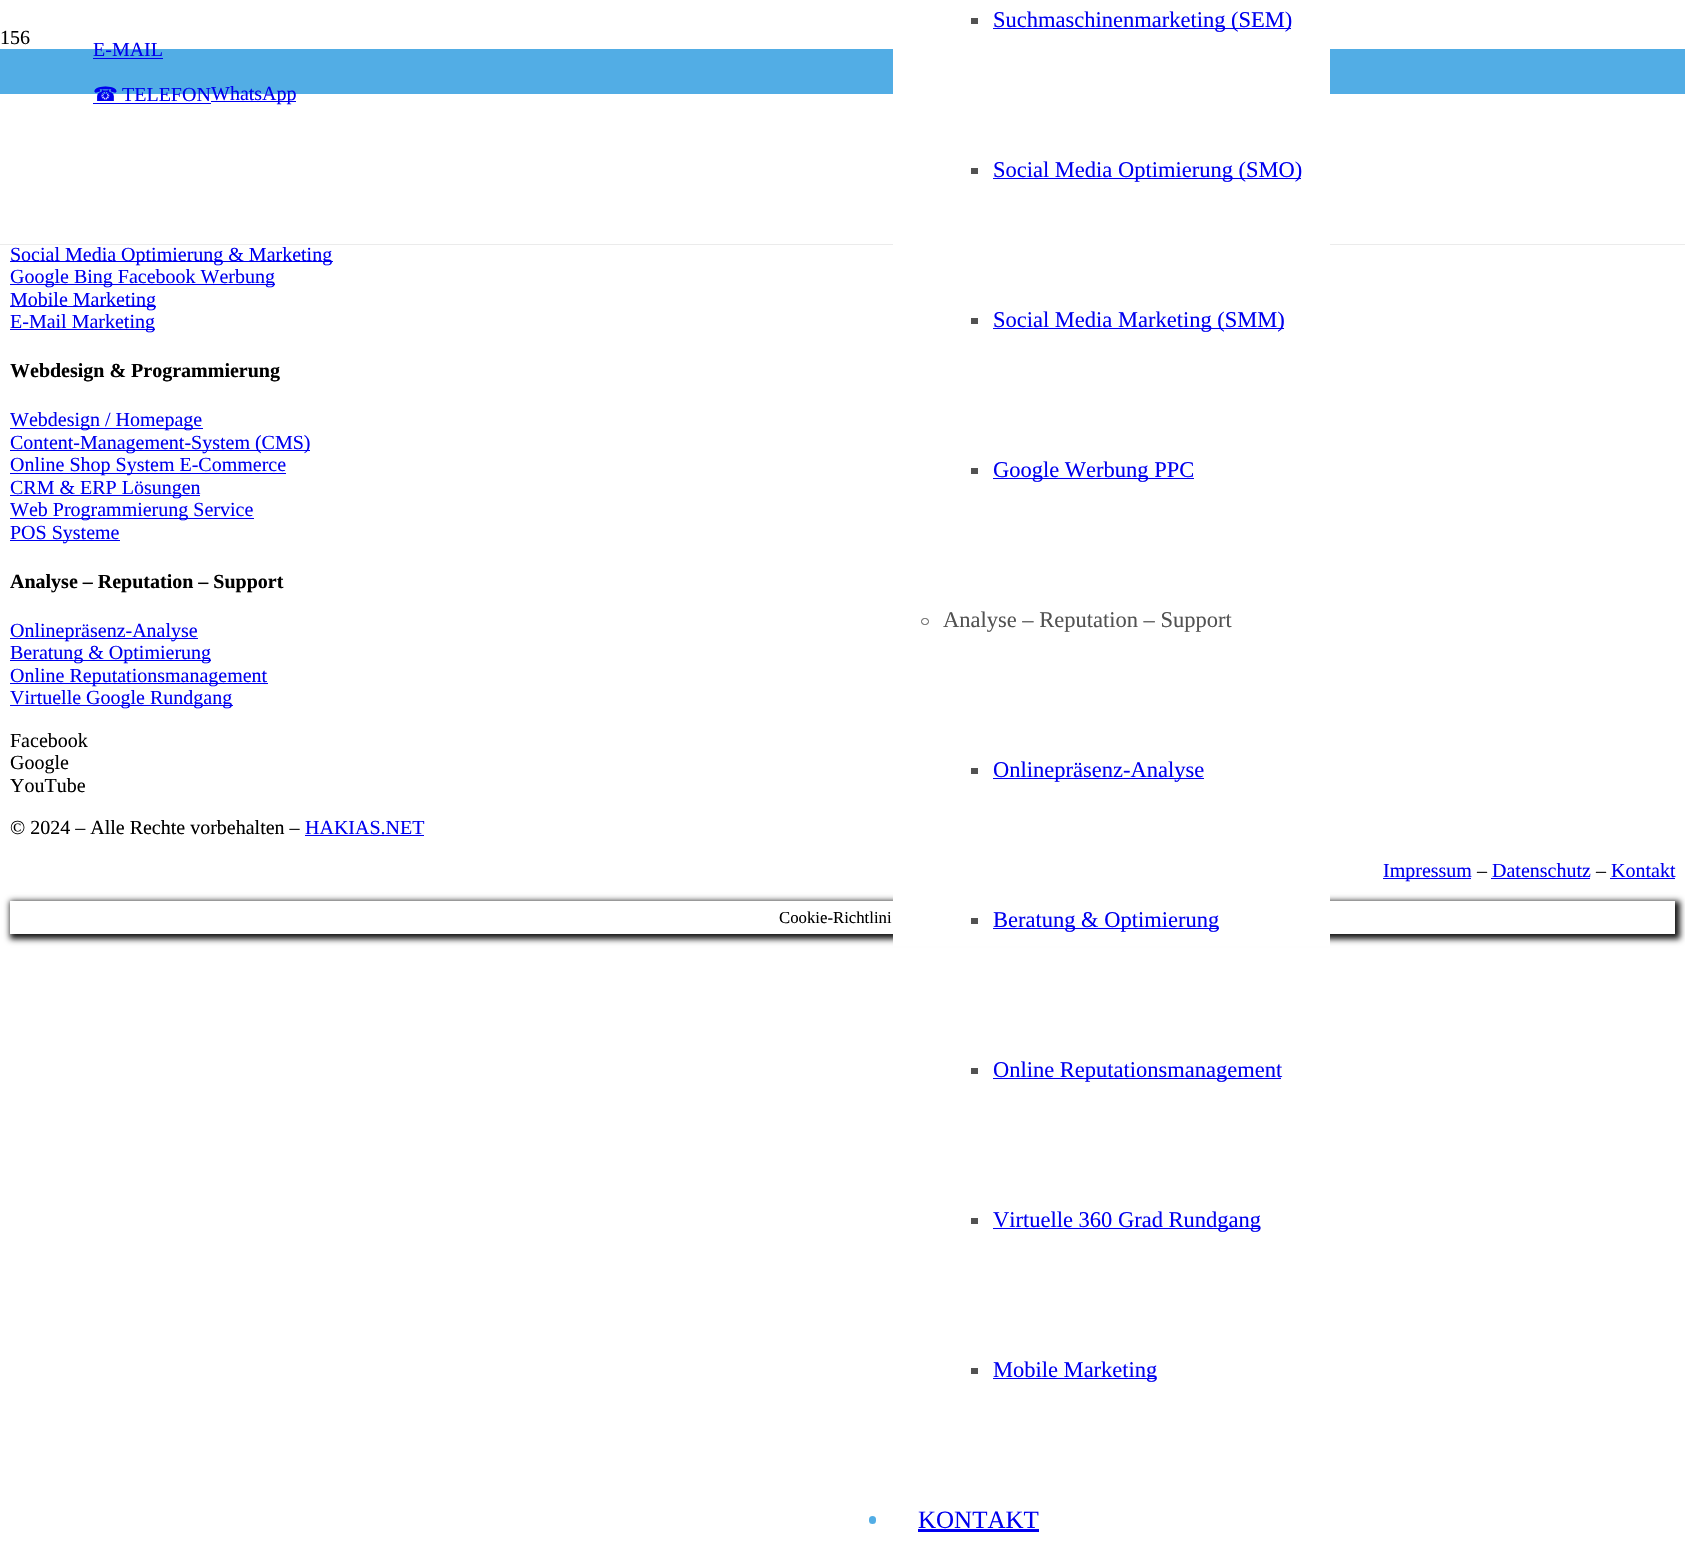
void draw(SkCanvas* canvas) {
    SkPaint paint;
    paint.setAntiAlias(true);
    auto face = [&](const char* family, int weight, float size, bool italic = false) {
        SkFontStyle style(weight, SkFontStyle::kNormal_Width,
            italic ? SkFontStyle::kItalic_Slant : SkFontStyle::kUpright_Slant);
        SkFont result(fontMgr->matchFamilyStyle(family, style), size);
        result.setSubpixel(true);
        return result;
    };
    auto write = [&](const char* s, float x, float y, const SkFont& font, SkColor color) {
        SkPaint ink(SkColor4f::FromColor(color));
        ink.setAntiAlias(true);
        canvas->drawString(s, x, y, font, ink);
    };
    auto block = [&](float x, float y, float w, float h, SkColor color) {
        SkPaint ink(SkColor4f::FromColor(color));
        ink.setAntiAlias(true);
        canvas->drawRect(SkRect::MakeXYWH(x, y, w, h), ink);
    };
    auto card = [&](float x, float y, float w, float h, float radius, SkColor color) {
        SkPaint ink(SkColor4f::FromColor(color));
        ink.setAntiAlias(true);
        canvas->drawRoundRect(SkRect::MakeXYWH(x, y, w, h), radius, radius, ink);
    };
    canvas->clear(SK_ColorWHITE);
    auto kFont1 = face("Liberation Serif", 400, 20);
    write("156", 0, 44, kFont1, SK_ColorBLACK);
    block(0, 244, 1685, 1, SkColorSetRGB(235, 235, 235));
    block(0, 49, 1685, 45, SkColorSetRGB(82, 173, 229));
    canvas->save();
    canvas->clipPath(SkPathBuilder(SkPathFillType::kEvenOdd).moveTo(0, 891).lineTo(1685, 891).lineTo(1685, 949).lineTo(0, 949).close().moveTo(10, 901).lineTo(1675, 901).lineTo(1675, 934).lineTo(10, 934).close().detach(), true);
    paint.setColor(SkColorSetRGB(22, 22, 22));
    paint.setMaskFilter(SkMaskFilter::MakeBlur(kNormal_SkBlurStyle, 3));
    canvas->drawRect(SkRect::MakeXYWH(10, 901, 1670, 38), paint);
    paint.setMaskFilter(nullptr);
    canvas->restore();
    block(893, 49, 437, 897, SK_ColorWHITE);
    block(971, 18, 7, 6, SkColorSetRGB(82, 82, 82));
    block(993, 28, 298, 1, SkColorSetRGB(0, 0, 238));
    auto kFont2 = face("Liberation Serif", 400, 22.5f);
    write("Suchmaschinenmarketing (SEM)", 993, 27, kFont2, SkColorSetRGB(0, 0, 238));
    block(971, 168, 7, 6, SkColorSetRGB(82, 82, 82));
    block(993, 178, 308, 1, SkColorSetRGB(0, 0, 238));
    write("Social Media Optimierung (SMO)", 993, 177, kFont2, SkColorSetRGB(0, 0, 238));
    block(971, 318, 7, 6, SkColorSetRGB(82, 82, 82));
    block(993, 328, 291, 1, SkColorSetRGB(0, 0, 238));
    write("Social Media Marketing (SMM)", 993, 327, kFont2, SkColorSetRGB(0, 0, 238));
    block(971, 468, 7, 6, SkColorSetRGB(82, 82, 82));
    block(993, 478, 201, 1, SkColorSetRGB(0, 0, 238));
    write("Google Werbung PPC", 993, 477, kFont2, SkColorSetRGB(0, 0, 238));
    paint.setStyle(SkPaint::kStroke_Style);
    paint.setStrokeWidth(1);
    paint.setColor(SkColorSetRGB(82, 82, 82));
    canvas->drawRoundRect(SkRect::MakeXYWH(921.5f, 618.5f, 7, 6), 3, 3, paint);
    write("Analyse – Reputation – Support", 943, 627, kFont2, SkColorSetRGB(82, 82, 82));
    block(971, 768, 7, 6, SkColorSetRGB(82, 82, 82));
    block(993, 778, 211, 1, SkColorSetRGB(0, 0, 238));
    write("Onlinepräsenz-Analyse", 993, 777, kFont2, SkColorSetRGB(0, 0, 238));
    block(971, 918, 7, 6, SkColorSetRGB(82, 82, 82));
    block(993, 928, 226, 1, SkColorSetRGB(0, 0, 238));
    write("Beratung & Optimierung", 993, 927, kFont2, SkColorSetRGB(0, 0, 238));
    block(971, 1068, 7, 6, SkColorSetRGB(82, 82, 82));
    block(993, 1078, 288, 1, SkColorSetRGB(0, 0, 238));
    write("Online Reputationsmanagement", 993, 1077, kFont2, SkColorSetRGB(0, 0, 238));
    block(971, 1218, 7, 6, SkColorSetRGB(82, 82, 82));
    block(993, 1228, 267, 1, SkColorSetRGB(0, 0, 238));
    write("Virtuelle 360 Grad Rundgang", 993, 1227, kFont2, SkColorSetRGB(0, 0, 238));
    block(971, 1368, 7, 6, SkColorSetRGB(82, 82, 82));
    block(993, 1378, 163, 1, SkColorSetRGB(0, 0, 238));
    write("Mobile Marketing", 993, 1377, kFont2, SkColorSetRGB(0, 0, 238));
    card(869, 1516, 7, 8, 3.5f, SkColorSetRGB(82, 173, 229));
    auto kFont3 = face("Liberation Serif", 400, 25);
    write("KONTAKT", 918, 1528, kFont3, SkColorSetRGB(0, 0, 238));
    block(918, 1529, 121, 3, SkColorSetRGB(0, 0, 238));
    write("E-MAIL", 93, 56, kFont1, SkColorSetRGB(0, 0, 238));
    block(93, 58, 70, 1, SkColorSetRGB(0, 0, 238));
    auto kFont4 = face("DejaVu Sans", 400, 20);
    write("☎", 93, 101, kFont4, SkColorSetRGB(0, 0, 238));
    write("TELEFON", 122, 101, kFont1, SkColorSetRGB(0, 0, 238));
    block(93, 103, 118, 1, SkColorSetRGB(0, 0, 238));
    block(211, 101, 85, 1, SkColorSetRGB(0, 0, 238));
    write("WhatsApp", 211, 100, kFont1, SkColorSetRGB(0, 0, 238));
    block(10, 261, 323, 1, SkColorSetRGB(0, 0, 238));
    write("Social Media Optimierung & Marketing", 10, 261, kFont1, SkColorSetRGB(0, 0, 238));
    block(10, 284, 265, 1, SkColorSetRGB(0, 0, 238));
    write("Google Bing Facebook Werbung", 10, 283, kFont1, SkColorSetRGB(0, 0, 238));
    block(10, 306, 146, 1, SkColorSetRGB(0, 0, 238));
    write("Mobile Marketing", 10, 306, kFont1, SkColorSetRGB(0, 0, 238));
    block(10, 329, 145, 1, SkColorSetRGB(0, 0, 238));
    write("E-Mail Marketing", 10, 328, kFont1, SkColorSetRGB(0, 0, 238));
    auto kFont5 = face("Liberation Serif", 700, 20);
    write("Webdesign & Programmierung", 10, 377, kFont5, SK_ColorBLACK);
    block(10, 428, 193, 1, SkColorSetRGB(0, 0, 238));
    write("Webdesign / Homepage", 10, 426, kFont1, SkColorSetRGB(0, 0, 238));
    block(10, 450, 300, 1, SkColorSetRGB(0, 0, 238));
    write("Content-Management-System (CMS)", 10, 449, kFont1, SkColorSetRGB(0, 0, 238));
    block(10, 473, 276, 1, SkColorSetRGB(0, 0, 238));
    write("Online Shop System E-Commerce", 10, 471, kFont1, SkColorSetRGB(0, 0, 238));
    block(10, 495, 190, 1, SkColorSetRGB(0, 0, 238));
    write("CRM & ERP Lösungen", 10, 494, kFont1, SkColorSetRGB(0, 0, 238));
    block(10, 518, 244, 1, SkColorSetRGB(0, 0, 238));
    write("Web Programmierung Service", 10, 516, kFont1, SkColorSetRGB(0, 0, 238));
    block(10, 540, 110, 1, SkColorSetRGB(0, 0, 238));
    write("POS Systeme", 10, 539, kFont1, SkColorSetRGB(0, 0, 238));
    write("Analyse – Reputation – Support", 10, 588, kFont5, SK_ColorBLACK);
    block(10, 638, 188, 1, SkColorSetRGB(0, 0, 238));
    write("Onlinepräsenz-Analyse", 10, 637, kFont1, SkColorSetRGB(0, 0, 238));
    block(10, 660, 201, 1, SkColorSetRGB(0, 0, 238));
    write("Beratung & Optimierung", 10, 659, kFont1, SkColorSetRGB(0, 0, 238));
    block(10, 683, 258, 1, SkColorSetRGB(0, 0, 238));
    write("Online Reputationsmanagement", 10, 682, kFont1, SkColorSetRGB(0, 0, 238));
    block(10, 705, 223, 1, SkColorSetRGB(0, 0, 238));
    write("Virtuelle Google Rundgang", 10, 704, kFont1, SkColorSetRGB(0, 0, 238));
    write("Facebook", 10, 747, kFont1, SK_ColorBLACK);
    write("Google", 10, 769, kFont1, SK_ColorBLACK);
    write("YouTube", 10, 792, kFont1, SK_ColorBLACK);
    write("© 2024 – Alle Rechte vorbehalten –", 10, 834, kFont1, SK_ColorBLACK);
    write("HAKIAS.NET", 305, 834, kFont1, SkColorSetRGB(0, 0, 238));
    block(305, 835, 119, 1, SkColorSetRGB(0, 0, 238));
    block(1383, 878, 88, 1, SkColorSetRGB(0, 0, 238));
    write("Impressum", 1383, 877, kFont1, SkColorSetRGB(0, 0, 238));
    write("–", 1477, 877, kFont1, SK_ColorBLACK);
    write("Datenschutz", 1492, 877, kFont1, SkColorSetRGB(0, 0, 238));
    block(1491, 878, 99, 1, SkColorSetRGB(0, 0, 238));
    write("–", 1596, 877, kFont1, SK_ColorBLACK);
    write("Kontakt", 1611, 877, kFont1, SkColorSetRGB(0, 0, 238));
    block(1610, 878, 65, 1, SkColorSetRGB(0, 0, 238));
    auto kFont6 = face("Liberation Serif", 400, 16.75f);
    write("Cookie-Richtlini", 779, 923, kFont6, SK_ColorBLACK);
}
